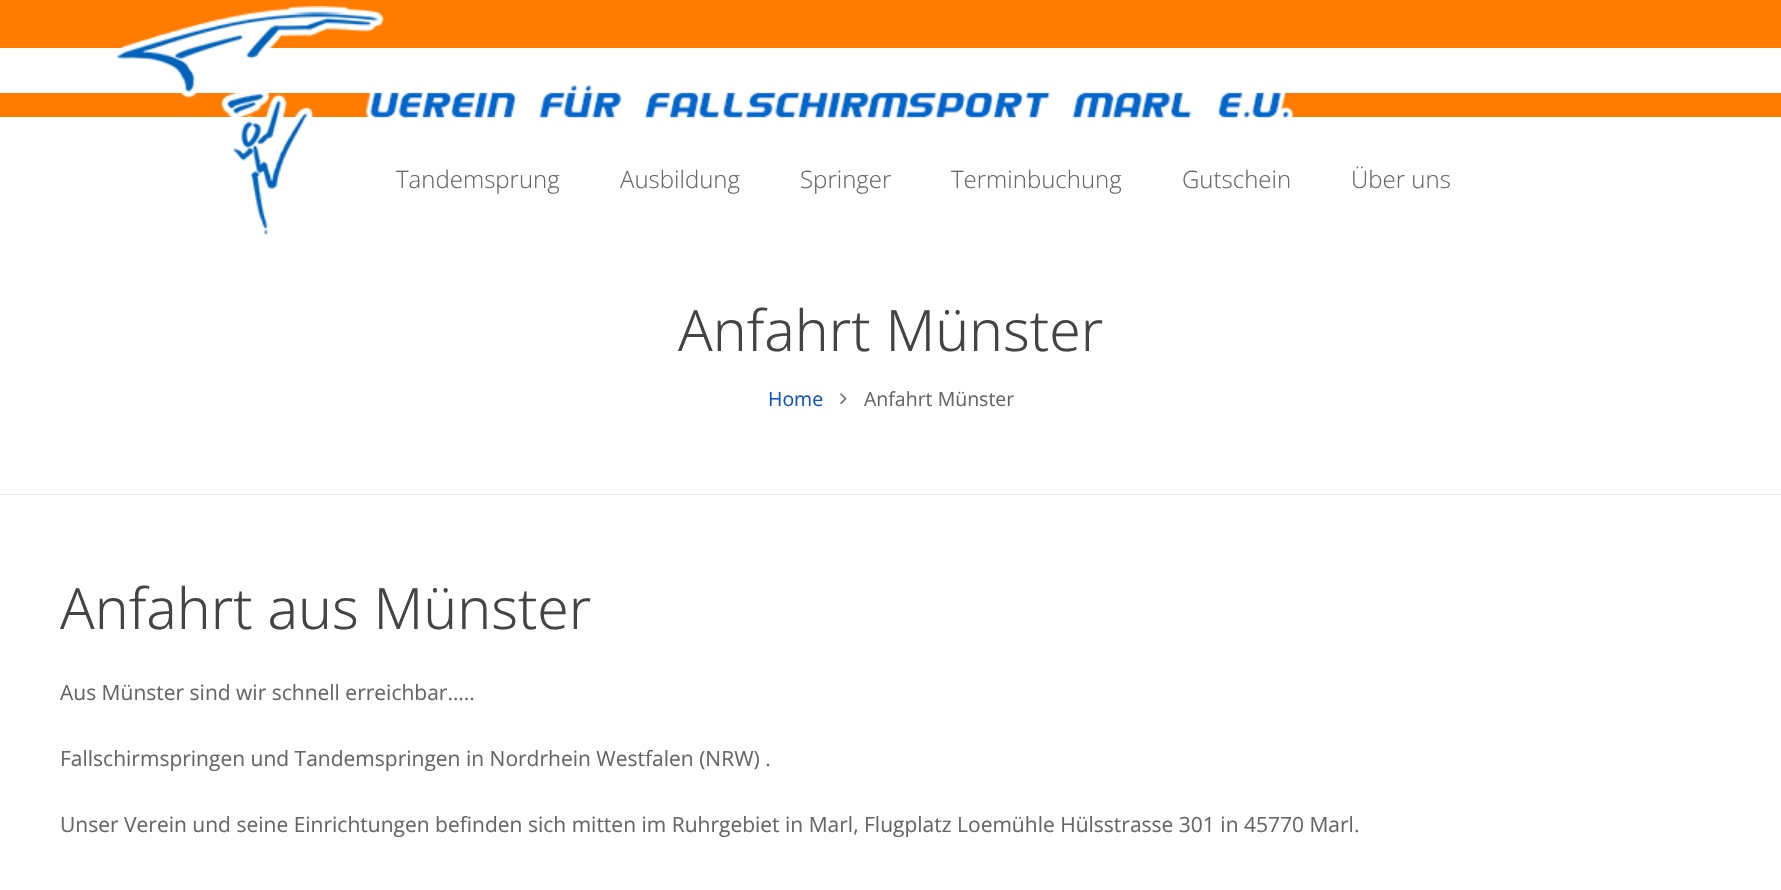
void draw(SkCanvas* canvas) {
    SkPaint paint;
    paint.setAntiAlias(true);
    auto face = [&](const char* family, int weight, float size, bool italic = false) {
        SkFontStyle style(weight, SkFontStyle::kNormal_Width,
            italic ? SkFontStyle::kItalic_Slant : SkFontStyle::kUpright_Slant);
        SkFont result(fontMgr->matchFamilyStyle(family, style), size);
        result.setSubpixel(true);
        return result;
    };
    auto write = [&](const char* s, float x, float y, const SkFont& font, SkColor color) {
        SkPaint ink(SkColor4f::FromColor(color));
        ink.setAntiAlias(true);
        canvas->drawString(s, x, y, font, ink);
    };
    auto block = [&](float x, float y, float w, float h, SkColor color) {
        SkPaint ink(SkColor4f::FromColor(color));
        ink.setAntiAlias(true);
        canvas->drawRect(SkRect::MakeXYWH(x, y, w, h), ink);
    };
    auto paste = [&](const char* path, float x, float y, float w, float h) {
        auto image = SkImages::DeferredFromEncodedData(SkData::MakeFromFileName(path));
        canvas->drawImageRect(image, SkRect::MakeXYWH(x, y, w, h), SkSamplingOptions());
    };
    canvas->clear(SK_ColorWHITE);
    block(0, 0, 1781, 48, SkColorSetRGB(255, 124, 0));
    block(0, 93, 1781, 24, SkColorSetRGB(255, 124, 0));
    paste("pic1.png", 116, 6, 268, 229);
    paste("pic2.png", 366, 85, 927, 33);
    auto kFont1 = face("Open Sans", 300, 24);
    write("Tandemsprung", 396, 188, kFont1, SkColorSetRGB(102, 102, 102));
    write("Ausbildung", 620, 188, kFont1, SkColorSetRGB(102, 102, 102));
    write("Springer", 800, 188, kFont1, SkColorSetRGB(102, 102, 102));
    write("Terminbuchung", 951, 188, kFont1, SkColorSetRGB(102, 102, 102));
    write("Gutschein", 1182, 188, kFont1, SkColorSetRGB(102, 102, 102));
    write("Über uns", 1351, 188, kFont1, SkColorSetRGB(102, 102, 102));
    canvas->save();
    canvas->clipRect(SkRect::MakeXYWH(0, 218, 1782, 277));
    paint.setColor(SkColorSetRGB(235, 235, 235));
    canvas->drawPath(SkPathBuilder(SkPathFillType::kEvenOdd).moveTo(-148, 69).lineTo(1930, 69).lineTo(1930, 644).lineTo(-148, 644).close().moveTo(0, 213).lineTo(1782, 213).cubicTo(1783, 213, 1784, 214, 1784, 214).lineTo(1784, 492).cubicTo(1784, 493, 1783, 494, 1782, 494).lineTo(0, 494).cubicTo(-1, 494, -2, 493, -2, 492).lineTo(-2, 214).cubicTo(-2, 214, -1, 213, 0, 213).close().detach(), paint);
    canvas->restore();
    auto kFont2 = face("Noto Sans", 300, 57);
    write("Anfahrt Münster", 678, 351, kFont2, SkColorSetRGB(68, 68, 68));
    auto kFont3 = face("Open Sans", 400, 19.5f);
    write("Home", 768, 406, kFont3, SkColorSetRGB(15, 84, 189));
    paste("pic3.png", 840, 393, 7, 12);
    write("Anfahrt Münster", 864, 406, kFont3, SkColorSetRGB(102, 102, 102));
    write("Anfahrt aus Münster", 60, 629, kFont2, SkColorSetRGB(68, 68, 68));
    auto kFont4 = face("Open Sans", 400, 21);
    write("Aus Münster sind wir schnell erreichbar…..", 60, 700, kFont4, SkColorSetRGB(102, 102, 102));
    write("Fallschirmspringen und Tandemspringen in Nordrhein Westfalen (NRW) .", 60, 766, kFont4, SkColorSetRGB(102, 102, 102));
    write("Unser Verein und seine Einrichtungen befinden sich mitten im Ruhrgebiet in Marl, Flugplatz Loemühle Hülsstrasse 301 in 45770 Marl.", 60, 832, kFont4, SkColorSetRGB(102, 102, 102));
}
